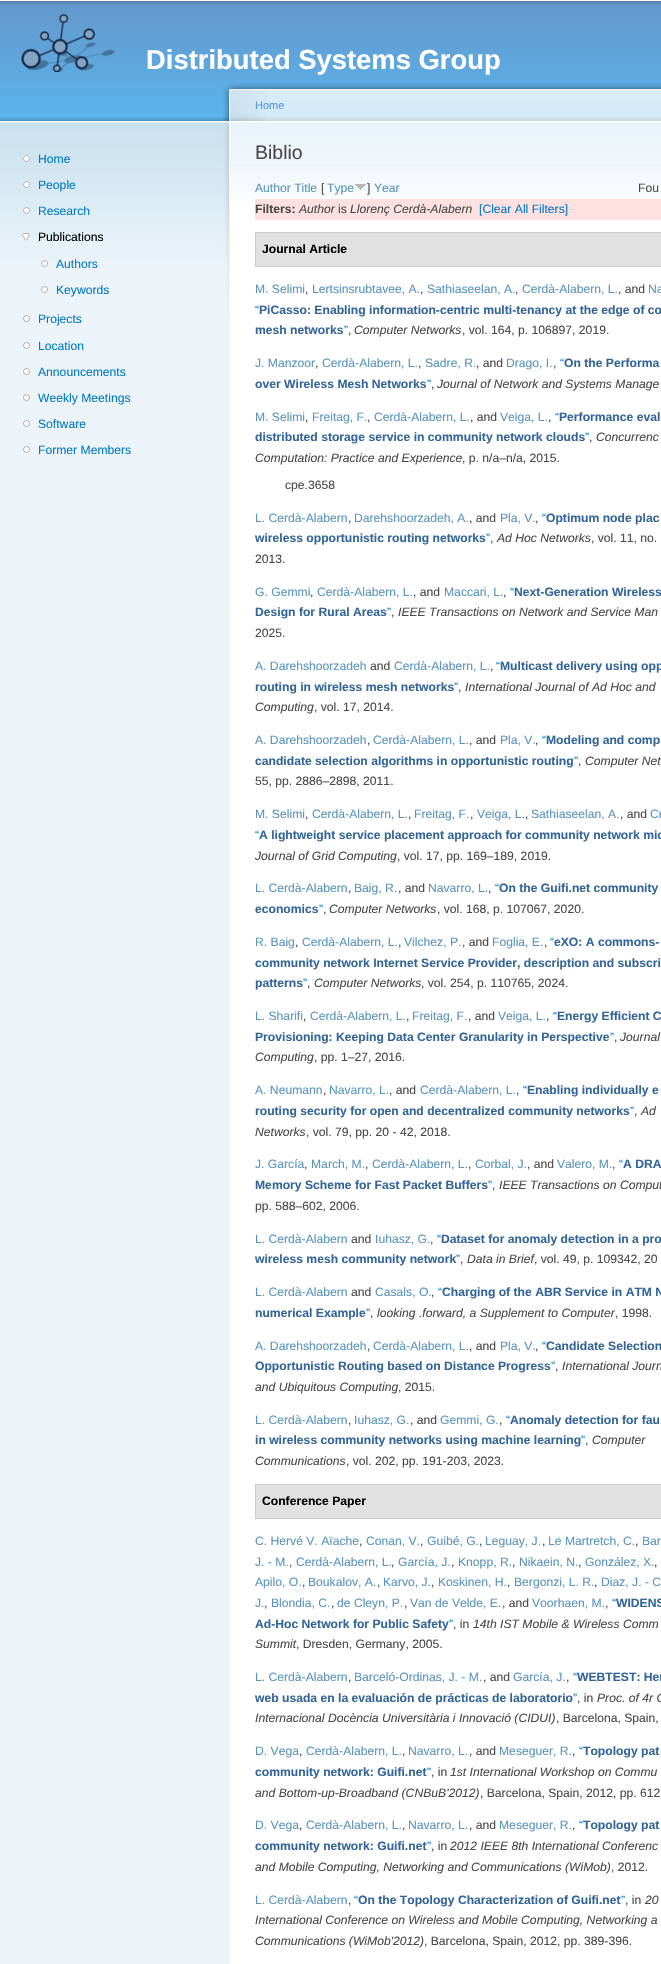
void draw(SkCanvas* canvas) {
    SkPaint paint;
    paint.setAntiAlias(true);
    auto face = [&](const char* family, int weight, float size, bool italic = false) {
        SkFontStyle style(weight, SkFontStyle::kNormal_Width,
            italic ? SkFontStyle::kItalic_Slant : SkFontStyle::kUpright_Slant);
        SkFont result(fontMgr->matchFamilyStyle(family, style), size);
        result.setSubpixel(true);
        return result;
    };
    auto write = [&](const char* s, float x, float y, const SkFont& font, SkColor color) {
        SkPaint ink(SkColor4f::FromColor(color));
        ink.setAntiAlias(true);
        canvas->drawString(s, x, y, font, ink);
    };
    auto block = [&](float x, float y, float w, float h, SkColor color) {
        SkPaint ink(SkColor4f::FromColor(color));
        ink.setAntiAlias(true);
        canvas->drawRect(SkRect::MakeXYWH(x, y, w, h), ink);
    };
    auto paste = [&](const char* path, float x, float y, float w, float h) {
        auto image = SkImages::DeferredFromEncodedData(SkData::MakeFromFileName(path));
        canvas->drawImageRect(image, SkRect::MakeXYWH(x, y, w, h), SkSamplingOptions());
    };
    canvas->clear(SkColorSetRGB(237, 244, 249));
    paste("pic1.png", 0, 0, 661, 260);
    paste("pic2.png", 21, 14, 94, 58);
    auto kFont1 = face("Liberation Sans", 700, 27.4f);
    write("Distributed Systems Group", 146, 69, kFont1, SK_ColorWHITE);
    paste("pic3.png", 23, 155, 7, 7);
    auto kFont2 = face("Liberation Sans", 400, 12.15f);
    write("Home", 38, 163, kFont2, SkColorSetRGB(2, 122, 198));
    paste("pic4.png", 23, 181, 7, 7);
    write("People", 38, 189, kFont2, SkColorSetRGB(2, 122, 198));
    paste("pic5.png", 23, 207, 7, 7);
    write("Research", 38, 215, kFont2, SkColorSetRGB(2, 122, 198));
    paste("pic6.png", 21, 233, 10, 8);
    write("Publications", 38, 241, kFont2, SK_ColorBLACK);
    paste("pic7.png", 41, 260, 7, 7);
    write("Authors", 56, 268, kFont2, SkColorSetRGB(2, 122, 198));
    paste("pic7.png", 41, 286, 7, 7);
    write("Keywords", 56, 294, kFont2, SkColorSetRGB(2, 122, 198));
    paste("pic7.png", 23, 315, 7, 7);
    write("Projects", 38, 323, kFont2, SkColorSetRGB(2, 122, 198));
    paste("pic7.png", 23, 342, 7, 7);
    write("Location", 38, 350, kFont2, SkColorSetRGB(2, 122, 198));
    paste("pic7.png", 23, 368, 7, 7);
    write("Announcements", 38, 376, kFont2, SkColorSetRGB(2, 122, 198));
    paste("pic7.png", 23, 394, 7, 7);
    write("Weekly Meetings", 38, 402, kFont2, SkColorSetRGB(2, 122, 198));
    paste("pic7.png", 23, 420, 7, 7);
    write("Software", 38, 428, kFont2, SkColorSetRGB(2, 122, 198));
    paste("pic7.png", 23, 446, 7, 7);
    write("Former Members", 38, 454, kFont2, SkColorSetRGB(2, 122, 198));
    block(230, 220, 431, 1744, SK_ColorWHITE);
    paste("pic8.png", 230, 80, 431, 119);
    paste("pic9.png", 223, 84, 44, 237);
    auto kFont3 = face("Liberation Sans", 400, 11);
    write("Home", 255, 109, kFont3, SkColorSetRGB(82, 153, 214));
    block(229, 165, 432, 1, SkColorSetRGB(233, 238, 243));
    auto kFont4 = face("Liberation Sans", 400, 19.5f);
    write("Biblio", 255, 159, kFont4, SkColorSetRGB(73, 73, 73));
    write("Author Title", 255, 192, kFont2, SkColorSetRGB(88, 148, 190));
    write("[", 321, 192, kFont2, SkColorSetRGB(73, 73, 73));
    write("Type", 327, 192, kFont2, SkColorSetRGB(88, 148, 190));
    paste("pic10.png", 355, 184, 11, 6);
    write("]", 367, 192, kFont2, SkColorSetRGB(73, 73, 73));
    write("Year", 374, 192, kFont2, SkColorSetRGB(88, 148, 190));
    write("Fou", 638, 192, kFont2, SkColorSetRGB(73, 73, 73));
    block(255, 199, 406, 21, SkColorSetRGB(255, 225, 225));
    auto kFont5 = face("Liberation Sans", 700, 12.15f);
    write("Filters:", 255, 213, kFont5, SkColorSetRGB(73, 73, 73));
    auto kFont6 = face("Liberation Sans", 400, 12.15f, true);
    write("Author", 299, 213, kFont6, SkColorSetRGB(73, 73, 73));
    write("is", 338, 213, kFont2, SkColorSetRGB(73, 73, 73));
    write("Llorenç Cerdà-Alabern", 350, 213, kFont6, SkColorSetRGB(73, 73, 73));
    write("[Clear All Filters]", 479, 213, kFont2, SkColorSetRGB(2, 122, 198));
    paint.setColor(SkColorSetRGB(225, 225, 225));
    canvas->drawRect(SkRect::MakeXYWH(255.5f, 232.5f, 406, 34), paint);
    paint.setStyle(SkPaint::kStroke_Style);
    paint.setStrokeWidth(1);
    paint.setColor(SkColorSetRGB(204, 204, 204));
    canvas->drawRect(SkRect::MakeXYWH(255.5f, 232.5f, 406, 34), paint);
    write("Journal Article", 262, 253, kFont5, SK_ColorBLACK);
    write("M. Selimi", 255, 293, kFont2, SkColorSetRGB(88, 148, 190));
    write(",", 305, 293, kFont2, SkColorSetRGB(73, 73, 73));
    write("Lertsinsrubtavee, A.", 312, 293, kFont2, SkColorSetRGB(88, 148, 190));
    write(",", 420, 293, kFont2, SkColorSetRGB(73, 73, 73));
    write("Sathiaseelan, A.", 427, 293, kFont2, SkColorSetRGB(88, 148, 190));
    write(",", 515, 293, kFont2, SkColorSetRGB(73, 73, 73));
    write("Cerdà-Alabern, L.", 522, 293, kFont2, SkColorSetRGB(88, 148, 190));
    write(", and", 618, 293, kFont2, SkColorSetRGB(73, 73, 73));
    write("Na", 648, 293, kFont2, SkColorSetRGB(88, 148, 190));
    write("“", 255, 314, kFont2, SkColorSetRGB(2, 122, 198));
    write("PiCasso: Enabling information-centric multi-tenancy at the edge of co", 259, 314, kFont5, SkColorSetRGB(51, 101, 153));
    write("mesh networks", 255, 334, kFont5, SkColorSetRGB(51, 101, 153));
    write("”", 344, 334, kFont2, SkColorSetRGB(2, 122, 198));
    write(",", 348, 334, kFont2, SkColorSetRGB(73, 73, 73));
    write("Computer Networks", 354, 334, kFont6, SkColorSetRGB(73, 73, 73));
    write(", vol. 164, p. 106897, 2019.", 462, 334, kFont2, SkColorSetRGB(73, 73, 73));
    write("J. Manzoor", 255, 367, kFont2, SkColorSetRGB(88, 148, 190));
    write(",", 315, 367, kFont2, SkColorSetRGB(73, 73, 73));
    write("Cerdà-Alabern, L.", 322, 367, kFont2, SkColorSetRGB(88, 148, 190));
    write(",", 418, 367, kFont2, SkColorSetRGB(73, 73, 73));
    write("Sadre, R.", 425, 367, kFont2, SkColorSetRGB(88, 148, 190));
    write(", and", 476, 367, kFont2, SkColorSetRGB(73, 73, 73));
    write("Drago, I.", 506, 367, kFont2, SkColorSetRGB(88, 148, 190));
    write(",", 553, 367, kFont2, SkColorSetRGB(73, 73, 73));
    write("“", 560, 367, kFont2, SkColorSetRGB(2, 122, 198));
    write("On the Performa", 564, 367, kFont5, SkColorSetRGB(51, 101, 153));
    write("over Wireless Mesh Networks", 255, 388, kFont5, SkColorSetRGB(51, 101, 153));
    write("”", 427, 388, kFont2, SkColorSetRGB(2, 122, 198));
    write(",", 431, 388, kFont2, SkColorSetRGB(73, 73, 73));
    write("Journal of Network and Systems Manage", 437, 388, kFont6, SkColorSetRGB(73, 73, 73));
    write("M. Selimi", 255, 421, kFont2, SkColorSetRGB(88, 148, 190));
    write(",", 305, 421, kFont2, SkColorSetRGB(73, 73, 73));
    write("Freitag, F.", 312, 421, kFont2, SkColorSetRGB(88, 148, 190));
    write(",", 367, 421, kFont2, SkColorSetRGB(73, 73, 73));
    write("Cerdà-Alabern, L.", 374, 421, kFont2, SkColorSetRGB(88, 148, 190));
    write(", and", 470, 421, kFont2, SkColorSetRGB(73, 73, 73));
    write("Veiga, L.", 500, 421, kFont2, SkColorSetRGB(88, 148, 190));
    write(",", 548, 421, kFont2, SkColorSetRGB(73, 73, 73));
    write("“", 555, 421, kFont2, SkColorSetRGB(2, 122, 198));
    write("Performance eval", 559, 421, kFont5, SkColorSetRGB(51, 101, 153));
    write("distributed storage service in community network clouds", 255, 441, kFont5, SkColorSetRGB(51, 101, 153));
    write("”", 585, 441, kFont2, SkColorSetRGB(2, 122, 198));
    write(",", 589, 441, kFont2, SkColorSetRGB(73, 73, 73));
    write("Concurrenc", 596, 441, kFont6, SkColorSetRGB(73, 73, 73));
    write("Computation: Practice and Experience", 255, 462, kFont6, SkColorSetRGB(73, 73, 73));
    write(", p. n/a–n/a, 2015.", 462, 462, kFont2, SkColorSetRGB(73, 73, 73));
    write("cpe.3658", 285, 489, kFont2, SkColorSetRGB(73, 73, 73));
    write("L. Cerdà-Alabern", 255, 522, kFont2, SkColorSetRGB(88, 148, 190));
    write(",", 348, 522, kFont2, SkColorSetRGB(73, 73, 73));
    write("Darehshoorzadeh, A.", 354, 522, kFont2, SkColorSetRGB(88, 148, 190));
    write(", and", 469, 522, kFont2, SkColorSetRGB(73, 73, 73));
    write("Pla, V.", 500, 522, kFont2, SkColorSetRGB(88, 148, 190));
    write(",", 535, 522, kFont2, SkColorSetRGB(73, 73, 73));
    write("“", 542, 522, kFont2, SkColorSetRGB(2, 122, 198));
    write("Optimum node plac", 546, 522, kFont5, SkColorSetRGB(51, 101, 153));
    write("wireless opportunistic routing networks", 255, 542, kFont5, SkColorSetRGB(51, 101, 153));
    write("”", 486, 542, kFont2, SkColorSetRGB(2, 122, 198));
    write(",", 490, 542, kFont2, SkColorSetRGB(73, 73, 73));
    write("Ad Hoc Networks", 497, 542, kFont6, SkColorSetRGB(73, 73, 73));
    write(", vol. 11, no.", 591, 542, kFont2, SkColorSetRGB(73, 73, 73));
    write("2013.", 255, 563, kFont2, SkColorSetRGB(73, 73, 73));
    write("G. Gemmi", 255, 596, kFont2, SkColorSetRGB(88, 148, 190));
    write(",", 310, 596, kFont2, SkColorSetRGB(73, 73, 73));
    write("Cerdà-Alabern, L.", 317, 596, kFont2, SkColorSetRGB(88, 148, 190));
    write(", and", 413, 596, kFont2, SkColorSetRGB(73, 73, 73));
    write("Maccari, L.", 444, 596, kFont2, SkColorSetRGB(88, 148, 190));
    write(",", 503, 596, kFont2, SkColorSetRGB(73, 73, 73));
    write("“", 510, 596, kFont2, SkColorSetRGB(2, 122, 198));
    write("Next-Generation Wireless", 514, 596, kFont5, SkColorSetRGB(51, 101, 153));
    write("Design for Rural Areas", 255, 616, kFont5, SkColorSetRGB(51, 101, 153));
    write("”", 387, 616, kFont2, SkColorSetRGB(2, 122, 198));
    write(",", 391, 616, kFont2, SkColorSetRGB(73, 73, 73));
    write("IEEE Transactions on Network and Service Man", 398, 616, kFont6, SkColorSetRGB(73, 73, 73));
    write("2025.", 255, 637, kFont2, SkColorSetRGB(73, 73, 73));
    write("A. Darehshoorzadeh", 255, 670, kFont2, SkColorSetRGB(88, 148, 190));
    write("and", 370, 670, kFont2, SkColorSetRGB(73, 73, 73));
    write("Cerdà-Alabern, L.", 394, 670, kFont2, SkColorSetRGB(88, 148, 190));
    write(",", 490, 670, kFont2, SkColorSetRGB(73, 73, 73));
    write("“", 496, 670, kFont2, SkColorSetRGB(2, 122, 198));
    write("Multicast delivery using opp", 500, 670, kFont5, SkColorSetRGB(51, 101, 153));
    write("routing in wireless mesh networks", 255, 691, kFont5, SkColorSetRGB(51, 101, 153));
    write("”", 454, 691, kFont2, SkColorSetRGB(2, 122, 198));
    write(",", 458, 691, kFont2, SkColorSetRGB(73, 73, 73));
    write("International Journal of Ad Hoc and", 465, 691, kFont6, SkColorSetRGB(73, 73, 73));
    write("Computing", 255, 711, kFont6, SkColorSetRGB(73, 73, 73));
    write(", vol. 17, 2014.", 314, 711, kFont2, SkColorSetRGB(73, 73, 73));
    write("A. Darehshoorzadeh", 255, 744, kFont2, SkColorSetRGB(88, 148, 190));
    write(",", 367, 744, kFont2, SkColorSetRGB(73, 73, 73));
    write("Cerdà-Alabern, L.", 373, 744, kFont2, SkColorSetRGB(88, 148, 190));
    write(", and", 469, 744, kFont2, SkColorSetRGB(73, 73, 73));
    write("Pla, V.", 500, 744, kFont2, SkColorSetRGB(88, 148, 190));
    write(",", 535, 744, kFont2, SkColorSetRGB(73, 73, 73));
    write("“", 542, 744, kFont2, SkColorSetRGB(2, 122, 198));
    write("Modeling and comp", 546, 744, kFont5, SkColorSetRGB(51, 101, 153));
    write("candidate selection algorithms in opportunistic routing", 255, 765, kFont5, SkColorSetRGB(51, 101, 153));
    write("”", 574, 765, kFont2, SkColorSetRGB(2, 122, 198));
    write(",", 578, 765, kFont2, SkColorSetRGB(73, 73, 73));
    write("Computer Net", 585, 765, kFont6, SkColorSetRGB(73, 73, 73));
    write("55, pp. 2886–2898, 2011.", 255, 785, kFont2, SkColorSetRGB(73, 73, 73));
    write("M. Selimi", 255, 818, kFont2, SkColorSetRGB(88, 148, 190));
    write(",", 305, 818, kFont2, SkColorSetRGB(73, 73, 73));
    write("Cerdà-Alabern, L.", 312, 818, kFont2, SkColorSetRGB(88, 148, 190));
    write(",", 408, 818, kFont2, SkColorSetRGB(73, 73, 73));
    write("Freitag, F.", 414, 818, kFont2, SkColorSetRGB(88, 148, 190));
    write(",", 470, 818, kFont2, SkColorSetRGB(73, 73, 73));
    write("Veiga, L.", 477, 818, kFont2, SkColorSetRGB(88, 148, 190));
    write(",", 525, 818, kFont2, SkColorSetRGB(73, 73, 73));
    write("Sathiaseelan, A.", 531, 818, kFont2, SkColorSetRGB(88, 148, 190));
    write(", and", 620, 818, kFont2, SkColorSetRGB(73, 73, 73));
    write("Cr", 650, 818, kFont2, SkColorSetRGB(88, 148, 190));
    write("“", 255, 839, kFont2, SkColorSetRGB(2, 122, 198));
    write("A lightweight service placement approach for community network mic", 259, 839, kFont5, SkColorSetRGB(51, 101, 153));
    write("Journal of Grid Computing", 255, 860, kFont6, SkColorSetRGB(73, 73, 73));
    write(", vol. 17, pp. 169–189, 2019.", 397, 860, kFont2, SkColorSetRGB(73, 73, 73));
    write("L. Cerdà-Alabern", 255, 892, kFont2, SkColorSetRGB(88, 148, 190));
    write(",", 348, 892, kFont2, SkColorSetRGB(73, 73, 73));
    write("Baig, R.", 354, 892, kFont2, SkColorSetRGB(88, 148, 190));
    write(", and", 398, 892, kFont2, SkColorSetRGB(73, 73, 73));
    write("Navarro, L.", 428, 892, kFont2, SkColorSetRGB(88, 148, 190));
    write(",", 488, 892, kFont2, SkColorSetRGB(73, 73, 73));
    write("“", 495, 892, kFont2, SkColorSetRGB(2, 122, 198));
    write("On the Guifi.net community", 499, 892, kFont5, SkColorSetRGB(51, 101, 153));
    write("economics", 255, 913, kFont5, SkColorSetRGB(51, 101, 153));
    write("”", 319, 913, kFont2, SkColorSetRGB(2, 122, 198));
    write(",", 323, 913, kFont2, SkColorSetRGB(73, 73, 73));
    write("Computer Networks", 329, 913, kFont6, SkColorSetRGB(73, 73, 73));
    write(", vol. 168, p. 107067, 2020.", 437, 913, kFont2, SkColorSetRGB(73, 73, 73));
    write("R. Baig", 255, 946, kFont2, SkColorSetRGB(88, 148, 190));
    write(",", 295, 946, kFont2, SkColorSetRGB(73, 73, 73));
    write("Cerdà-Alabern, L.", 302, 946, kFont2, SkColorSetRGB(88, 148, 190));
    write(",", 398, 946, kFont2, SkColorSetRGB(73, 73, 73));
    write("Vilchez, P.", 404, 946, kFont2, SkColorSetRGB(88, 148, 190));
    write(", and", 462, 946, kFont2, SkColorSetRGB(73, 73, 73));
    write("Foglia, E.", 492, 946, kFont2, SkColorSetRGB(88, 148, 190));
    write(",", 544, 946, kFont2, SkColorSetRGB(73, 73, 73));
    write("“", 550, 946, kFont2, SkColorSetRGB(2, 122, 198));
    write("eXO: A commons-", 554, 946, kFont5, SkColorSetRGB(51, 101, 153));
    write("community network Internet Service Provider, description and subscri", 255, 967, kFont5, SkColorSetRGB(51, 101, 153));
    write("patterns", 255, 987, kFont5, SkColorSetRGB(51, 101, 153));
    write("”", 303, 987, kFont2, SkColorSetRGB(2, 122, 198));
    write(",", 307, 987, kFont2, SkColorSetRGB(73, 73, 73));
    write("Computer Networks", 314, 987, kFont6, SkColorSetRGB(73, 73, 73));
    write(", vol. 254, p. 110765, 2024.", 421, 987, kFont2, SkColorSetRGB(73, 73, 73));
    write("L. Sharifi", 255, 1020, kFont2, SkColorSetRGB(88, 148, 190));
    write(",", 303, 1020, kFont2, SkColorSetRGB(73, 73, 73));
    write("Cerdà-Alabern, L.", 310, 1020, kFont2, SkColorSetRGB(88, 148, 190));
    write(",", 406, 1020, kFont2, SkColorSetRGB(73, 73, 73));
    write("Freitag, F.", 412, 1020, kFont2, SkColorSetRGB(88, 148, 190));
    write(", and", 468, 1020, kFont2, SkColorSetRGB(73, 73, 73));
    write("Veiga, L.", 498, 1020, kFont2, SkColorSetRGB(88, 148, 190));
    write(",", 546, 1020, kFont2, SkColorSetRGB(73, 73, 73));
    write("“", 553, 1020, kFont2, SkColorSetRGB(2, 122, 198));
    write("Energy Efficient C", 557, 1020, kFont5, SkColorSetRGB(51, 101, 153));
    write("Provisioning: Keeping Data Center Granularity in Perspective", 255, 1041, kFont5, SkColorSetRGB(51, 101, 153));
    write("”", 610, 1041, kFont2, SkColorSetRGB(2, 122, 198));
    write(",", 614, 1041, kFont2, SkColorSetRGB(73, 73, 73));
    write("Journal", 620, 1041, kFont6, SkColorSetRGB(73, 73, 73));
    write("Computing", 255, 1061, kFont6, SkColorSetRGB(73, 73, 73));
    write(", pp. 1–27, 2016.", 314, 1061, kFont2, SkColorSetRGB(73, 73, 73));
    write("A. Neumann", 255, 1094, kFont2, SkColorSetRGB(88, 148, 190));
    write(",", 323, 1094, kFont2, SkColorSetRGB(73, 73, 73));
    write("Navarro, L.", 329, 1094, kFont2, SkColorSetRGB(88, 148, 190));
    write(", and", 389, 1094, kFont2, SkColorSetRGB(73, 73, 73));
    write("Cerdà-Alabern, L.", 420, 1094, kFont2, SkColorSetRGB(88, 148, 190));
    write(",", 516, 1094, kFont2, SkColorSetRGB(73, 73, 73));
    write("“", 523, 1094, kFont2, SkColorSetRGB(2, 122, 198));
    write("Enabling individually e", 527, 1094, kFont5, SkColorSetRGB(51, 101, 153));
    write("routing security for open and decentralized community networks", 255, 1115, kFont5, SkColorSetRGB(51, 101, 153));
    write("”", 630, 1115, kFont2, SkColorSetRGB(2, 122, 198));
    write(",", 634, 1115, kFont2, SkColorSetRGB(73, 73, 73));
    write("Ad", 641, 1115, kFont6, SkColorSetRGB(73, 73, 73));
    write("Networks", 255, 1136, kFont6, SkColorSetRGB(73, 73, 73));
    write(", vol. 79, pp. 20 - 42, 2018.", 306, 1136, kFont2, SkColorSetRGB(73, 73, 73));
    write("J. García", 255, 1168, kFont2, SkColorSetRGB(88, 148, 190));
    write(",", 304, 1168, kFont2, SkColorSetRGB(73, 73, 73));
    write("March, M.", 311, 1168, kFont2, SkColorSetRGB(88, 148, 190));
    write(",", 365, 1168, kFont2, SkColorSetRGB(73, 73, 73));
    write("Cerdà-Alabern, L.", 372, 1168, kFont2, SkColorSetRGB(88, 148, 190));
    write(",", 468, 1168, kFont2, SkColorSetRGB(73, 73, 73));
    write("Corbal, J.", 475, 1168, kFont2, SkColorSetRGB(88, 148, 190));
    write(", and", 527, 1168, kFont2, SkColorSetRGB(73, 73, 73));
    write("Valero, M.", 557, 1168, kFont2, SkColorSetRGB(88, 148, 190));
    write(",", 612, 1168, kFont2, SkColorSetRGB(73, 73, 73));
    write("“", 619, 1168, kFont2, SkColorSetRGB(2, 122, 198));
    write("A DRA", 623, 1168, kFont5, SkColorSetRGB(51, 101, 153));
    write("Memory Scheme for Fast Packet Buffers", 255, 1189, kFont5, SkColorSetRGB(51, 101, 153));
    write("”", 488, 1189, kFont2, SkColorSetRGB(2, 122, 198));
    write(",", 492, 1189, kFont2, SkColorSetRGB(73, 73, 73));
    write("IEEE Transactions on Comput", 499, 1189, kFont6, SkColorSetRGB(73, 73, 73));
    write("pp. 588–602, 2006.", 255, 1210, kFont2, SkColorSetRGB(73, 73, 73));
    write("L. Cerdà-Alabern", 255, 1243, kFont2, SkColorSetRGB(88, 148, 190));
    write("and", 351, 1243, kFont2, SkColorSetRGB(73, 73, 73));
    write("Iuhasz, G.", 375, 1243, kFont2, SkColorSetRGB(88, 148, 190));
    write(",", 430, 1243, kFont2, SkColorSetRGB(73, 73, 73));
    write("“", 437, 1243, kFont2, SkColorSetRGB(2, 122, 198));
    write("Dataset for anomaly detection in a pro", 441, 1243, kFont5, SkColorSetRGB(51, 101, 153));
    write("wireless mesh community network", 255, 1263, kFont5, SkColorSetRGB(51, 101, 153));
    write("”", 456, 1263, kFont2, SkColorSetRGB(2, 122, 198));
    write(",", 460, 1263, kFont2, SkColorSetRGB(73, 73, 73));
    write("Data in Brief", 467, 1263, kFont6, SkColorSetRGB(73, 73, 73));
    write(", vol. 49, p. 109342, 20", 534, 1263, kFont2, SkColorSetRGB(73, 73, 73));
    write("L. Cerdà-Alabern", 255, 1296, kFont2, SkColorSetRGB(88, 148, 190));
    write("and", 351, 1296, kFont2, SkColorSetRGB(73, 73, 73));
    write("Casals, O.", 375, 1296, kFont2, SkColorSetRGB(88, 148, 190));
    write(",", 431, 1296, kFont2, SkColorSetRGB(73, 73, 73));
    write("“", 438, 1296, kFont2, SkColorSetRGB(2, 122, 198));
    write("Charging of the ABR Service in ATM N", 442, 1296, kFont5, SkColorSetRGB(51, 101, 153));
    write("numerical Example", 255, 1317, kFont5, SkColorSetRGB(51, 101, 153));
    write("”", 366, 1317, kFont2, SkColorSetRGB(2, 122, 198));
    write(",", 370, 1317, kFont2, SkColorSetRGB(73, 73, 73));
    write("looking .forward, a Supplement to Computer", 377, 1317, kFont6, SkColorSetRGB(73, 73, 73));
    write(", 1998.", 615, 1317, kFont2, SkColorSetRGB(73, 73, 73));
    write("A. Darehshoorzadeh", 255, 1350, kFont2, SkColorSetRGB(88, 148, 190));
    write(",", 367, 1350, kFont2, SkColorSetRGB(73, 73, 73));
    write("Cerdà-Alabern, L.", 373, 1350, kFont2, SkColorSetRGB(88, 148, 190));
    write(", and", 469, 1350, kFont2, SkColorSetRGB(73, 73, 73));
    write("Pla, V.", 500, 1350, kFont2, SkColorSetRGB(88, 148, 190));
    write(",", 535, 1350, kFont2, SkColorSetRGB(73, 73, 73));
    write("“", 542, 1350, kFont2, SkColorSetRGB(2, 122, 198));
    write("Candidate Selection", 546, 1350, kFont5, SkColorSetRGB(51, 101, 153));
    write("Opportunistic Routing based on Distance Progress", 255, 1370, kFont5, SkColorSetRGB(51, 101, 153));
    write("”", 551, 1370, kFont2, SkColorSetRGB(2, 122, 198));
    write(",", 555, 1370, kFont2, SkColorSetRGB(73, 73, 73));
    write("International Journ", 562, 1370, kFont6, SkColorSetRGB(73, 73, 73));
    write("and Ubiquitous Computing", 255, 1391, kFont6, SkColorSetRGB(73, 73, 73));
    write(", 2015.", 398, 1391, kFont2, SkColorSetRGB(73, 73, 73));
    write("L. Cerdà-Alabern", 255, 1424, kFont2, SkColorSetRGB(88, 148, 190));
    write(",", 348, 1424, kFont2, SkColorSetRGB(73, 73, 73));
    write("Iuhasz, G.", 354, 1424, kFont2, SkColorSetRGB(88, 148, 190));
    write(", and", 410, 1424, kFont2, SkColorSetRGB(73, 73, 73));
    write("Gemmi, G.", 440, 1424, kFont2, SkColorSetRGB(88, 148, 190));
    write(",", 499, 1424, kFont2, SkColorSetRGB(73, 73, 73));
    write("“", 506, 1424, kFont2, SkColorSetRGB(2, 122, 198));
    write("Anomaly detection for fau", 510, 1424, kFont5, SkColorSetRGB(51, 101, 153));
    write("in wireless community networks using machine learning", 255, 1444, kFont5, SkColorSetRGB(51, 101, 153));
    write("”", 581, 1444, kFont2, SkColorSetRGB(2, 122, 198));
    write(",", 585, 1444, kFont2, SkColorSetRGB(73, 73, 73));
    write("Computer", 592, 1444, kFont6, SkColorSetRGB(73, 73, 73));
    write("Communications", 255, 1465, kFont6, SkColorSetRGB(73, 73, 73));
    write(", vol. 202, pp. 191-203, 2023.", 346, 1465, kFont2, SkColorSetRGB(73, 73, 73));
    paint.setStyle(SkPaint::kFill_Style);
    paint.setColor(SkColorSetRGB(225, 225, 225));
    canvas->drawRect(SkRect::MakeXYWH(255.5f, 1484.5f, 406, 34), paint);
    paint.setStyle(SkPaint::kStroke_Style);
    paint.setColor(SkColorSetRGB(204, 204, 204));
    canvas->drawRect(SkRect::MakeXYWH(255.5f, 1484.5f, 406, 34), paint);
    write("Conference Paper", 262, 1505, kFont5, SK_ColorBLACK);
    write("C. Hervé V. Aïache", 255, 1545, kFont2, SkColorSetRGB(88, 148, 190));
    write(",", 359, 1545, kFont2, SkColorSetRGB(73, 73, 73));
    write("Conan, V.", 366, 1545, kFont2, SkColorSetRGB(88, 148, 190));
    write(",", 420, 1545, kFont2, SkColorSetRGB(73, 73, 73));
    write("Guibé, G.", 427, 1545, kFont2, SkColorSetRGB(88, 148, 190));
    write(",", 479, 1545, kFont2, SkColorSetRGB(73, 73, 73));
    write("Leguay, J.", 485, 1545, kFont2, SkColorSetRGB(88, 148, 190));
    write(",", 542, 1545, kFont2, SkColorSetRGB(73, 73, 73));
    write("Le Martretch, C.", 548, 1545, kFont2, SkColorSetRGB(88, 148, 190));
    write(",", 635, 1545, kFont2, SkColorSetRGB(73, 73, 73));
    write("Bar", 642, 1545, kFont2, SkColorSetRGB(88, 148, 190));
    write("J. - M.", 255, 1566, kFont2, SkColorSetRGB(88, 148, 190));
    write(",", 289, 1566, kFont2, SkColorSetRGB(73, 73, 73));
    write("Cerdà-Alabern, L.", 296, 1566, kFont2, SkColorSetRGB(88, 148, 190));
    write(",", 391, 1566, kFont2, SkColorSetRGB(73, 73, 73));
    write("García, J.", 398, 1566, kFont2, SkColorSetRGB(88, 148, 190));
    write(",", 451, 1566, kFont2, SkColorSetRGB(73, 73, 73));
    write("Knopp, R.", 458, 1566, kFont2, SkColorSetRGB(88, 148, 190));
    write(",", 512, 1566, kFont2, SkColorSetRGB(73, 73, 73));
    write("Nikaein, N.", 519, 1566, kFont2, SkColorSetRGB(88, 148, 190));
    write(",", 578, 1566, kFont2, SkColorSetRGB(73, 73, 73));
    write("González, X.", 585, 1566, kFont2, SkColorSetRGB(88, 148, 190));
    write(",", 654, 1566, kFont2, SkColorSetRGB(73, 73, 73));
    write("Apilo, O.", 255, 1586, kFont2, SkColorSetRGB(88, 148, 190));
    write(",", 302, 1586, kFont2, SkColorSetRGB(73, 73, 73));
    write("Boukalov, A.", 308, 1586, kFont2, SkColorSetRGB(88, 148, 190));
    write(",", 377, 1586, kFont2, SkColorSetRGB(73, 73, 73));
    write("Karvo, J.", 383, 1586, kFont2, SkColorSetRGB(88, 148, 190));
    write(",", 431, 1586, kFont2, SkColorSetRGB(73, 73, 73));
    write("Koskinen, H.", 438, 1586, kFont2, SkColorSetRGB(88, 148, 190));
    write(",", 507, 1586, kFont2, SkColorSetRGB(73, 73, 73));
    write("Bergonzi, L. R.", 514, 1586, kFont2, SkColorSetRGB(88, 148, 190));
    write(",", 594, 1586, kFont2, SkColorSetRGB(73, 73, 73));
    write("Diaz, J. - C", 601, 1586, kFont2, SkColorSetRGB(88, 148, 190));
    write("J.", 255, 1607, kFont2, SkColorSetRGB(88, 148, 190));
    write(",", 264, 1607, kFont2, SkColorSetRGB(73, 73, 73));
    write("Blondia, C.", 271, 1607, kFont2, SkColorSetRGB(88, 148, 190));
    write(",", 331, 1607, kFont2, SkColorSetRGB(73, 73, 73));
    write("de Cleyn, P.", 337, 1607, kFont2, SkColorSetRGB(88, 148, 190));
    write(",", 404, 1607, kFont2, SkColorSetRGB(73, 73, 73));
    write("Van de Velde, E.", 410, 1607, kFont2, SkColorSetRGB(88, 148, 190));
    write(", and", 502, 1607, kFont2, SkColorSetRGB(73, 73, 73));
    write("Voorhaen, M.", 532, 1607, kFont2, SkColorSetRGB(88, 148, 190));
    write(",", 605, 1607, kFont2, SkColorSetRGB(73, 73, 73));
    write("“", 612, 1607, kFont2, SkColorSetRGB(2, 122, 198));
    write("WIDENS", 616, 1607, kFont5, SkColorSetRGB(51, 101, 153));
    write("Ad-Hoc Network for Public Safety", 255, 1628, kFont5, SkColorSetRGB(51, 101, 153));
    write("”", 449, 1628, kFont2, SkColorSetRGB(2, 122, 198));
    write(", in", 453, 1628, kFont2, SkColorSetRGB(73, 73, 73));
    write("14th IST Mobile & Wireless Comm", 473, 1628, kFont6, SkColorSetRGB(73, 73, 73));
    write("Summit", 255, 1648, kFont6, SkColorSetRGB(73, 73, 73));
    write(", Dresden, Germany, 2005.", 296, 1648, kFont2, SkColorSetRGB(73, 73, 73));
    write("L. Cerdà-Alabern", 255, 1681, kFont2, SkColorSetRGB(88, 148, 190));
    write(",", 348, 1681, kFont2, SkColorSetRGB(73, 73, 73));
    write("Barceló-Ordinas, J. - M.", 354, 1681, kFont2, SkColorSetRGB(88, 148, 190));
    write(", and", 483, 1681, kFont2, SkColorSetRGB(73, 73, 73));
    write("García, J.", 513, 1681, kFont2, SkColorSetRGB(88, 148, 190));
    write(",", 566, 1681, kFont2, SkColorSetRGB(73, 73, 73));
    write("“", 573, 1681, kFont2, SkColorSetRGB(2, 122, 198));
    write("WEBTEST: Her", 577, 1681, kFont5, SkColorSetRGB(51, 101, 153));
    write("web usada en la evaluación de prácticas de laboratorio", 255, 1702, kFont5, SkColorSetRGB(51, 101, 153));
    write("”", 573, 1702, kFont2, SkColorSetRGB(2, 122, 198));
    write(", in", 577, 1702, kFont2, SkColorSetRGB(73, 73, 73));
    write("Proc. of 4r C", 597, 1702, kFont6, SkColorSetRGB(73, 73, 73));
    write("Internacional Docència Universitària i Innovació (CIDUI)", 255, 1722, kFont6, SkColorSetRGB(73, 73, 73));
    write(", Barcelona, Spain,", 556, 1722, kFont2, SkColorSetRGB(73, 73, 73));
    write("D. Vega", 255, 1755, kFont2, SkColorSetRGB(88, 148, 190));
    write(",", 299, 1755, kFont2, SkColorSetRGB(73, 73, 73));
    write("Cerdà-Alabern, L.", 306, 1755, kFont2, SkColorSetRGB(88, 148, 190));
    write(",", 402, 1755, kFont2, SkColorSetRGB(73, 73, 73));
    write("Navarro, L.", 408, 1755, kFont2, SkColorSetRGB(88, 148, 190));
    write(", and", 469, 1755, kFont2, SkColorSetRGB(73, 73, 73));
    write("Meseguer, R.", 499, 1755, kFont2, SkColorSetRGB(88, 148, 190));
    write(",", 572, 1755, kFont2, SkColorSetRGB(73, 73, 73));
    write("“", 579, 1755, kFont2, SkColorSetRGB(2, 122, 198));
    write("Topology pat", 583, 1755, kFont5, SkColorSetRGB(51, 101, 153));
    write("community network: Guifi.net", 255, 1776, kFont5, SkColorSetRGB(51, 101, 153));
    write("”", 427, 1776, kFont2, SkColorSetRGB(2, 122, 198));
    write(", in", 431, 1776, kFont2, SkColorSetRGB(73, 73, 73));
    write("1st International Workshop on Commu", 450, 1776, kFont6, SkColorSetRGB(73, 73, 73));
    write("and Bottom-up-Broadband (CNBuB'2012)", 255, 1797, kFont6, SkColorSetRGB(73, 73, 73));
    write(", Barcelona, Spain, 2012, pp. 612", 480, 1797, kFont2, SkColorSetRGB(73, 73, 73));
    write("D. Vega", 255, 1829, kFont2, SkColorSetRGB(88, 148, 190));
    write(",", 299, 1829, kFont2, SkColorSetRGB(73, 73, 73));
    write("Cerdà-Alabern, L.", 306, 1829, kFont2, SkColorSetRGB(88, 148, 190));
    write(",", 402, 1829, kFont2, SkColorSetRGB(73, 73, 73));
    write("Navarro, L.", 408, 1829, kFont2, SkColorSetRGB(88, 148, 190));
    write(", and", 469, 1829, kFont2, SkColorSetRGB(73, 73, 73));
    write("Meseguer, R.", 499, 1829, kFont2, SkColorSetRGB(88, 148, 190));
    write(",", 572, 1829, kFont2, SkColorSetRGB(73, 73, 73));
    write("“", 579, 1829, kFont2, SkColorSetRGB(2, 122, 198));
    write("Topology pat", 583, 1829, kFont5, SkColorSetRGB(51, 101, 153));
    write("community network: Guifi.net", 255, 1850, kFont5, SkColorSetRGB(51, 101, 153));
    write("”", 427, 1850, kFont2, SkColorSetRGB(2, 122, 198));
    write(", in", 431, 1850, kFont2, SkColorSetRGB(73, 73, 73));
    write("2012 IEEE 8th International Conferenc", 450, 1850, kFont6, SkColorSetRGB(73, 73, 73));
    write("and Mobile Computing, Networking and Communications (WiMob)", 255, 1871, kFont6, SkColorSetRGB(73, 73, 73));
    write(", 2012.", 611, 1871, kFont2, SkColorSetRGB(73, 73, 73));
    write("L. Cerdà-Alabern", 255, 1904, kFont2, SkColorSetRGB(88, 148, 190));
    write(",", 348, 1904, kFont2, SkColorSetRGB(73, 73, 73));
    write("“", 354, 1904, kFont2, SkColorSetRGB(2, 122, 198));
    write("On the Topology Characterization of Guifi.net", 358, 1904, kFont5, SkColorSetRGB(51, 101, 153));
    write("”", 621, 1904, kFont2, SkColorSetRGB(2, 122, 198));
    write(", in", 625, 1904, kFont2, SkColorSetRGB(73, 73, 73));
    write("20", 645, 1904, kFont6, SkColorSetRGB(73, 73, 73));
    write("International Conference on Wireless and Mobile Computing, Networking a", 255, 1924, kFont6, SkColorSetRGB(73, 73, 73));
    write("Communications (WiMob'2012)", 255, 1945, kFont6, SkColorSetRGB(73, 73, 73));
    write(", Barcelona, Spain, 2012, pp. 389-396.", 424, 1945, kFont2, SkColorSetRGB(73, 73, 73));
}
